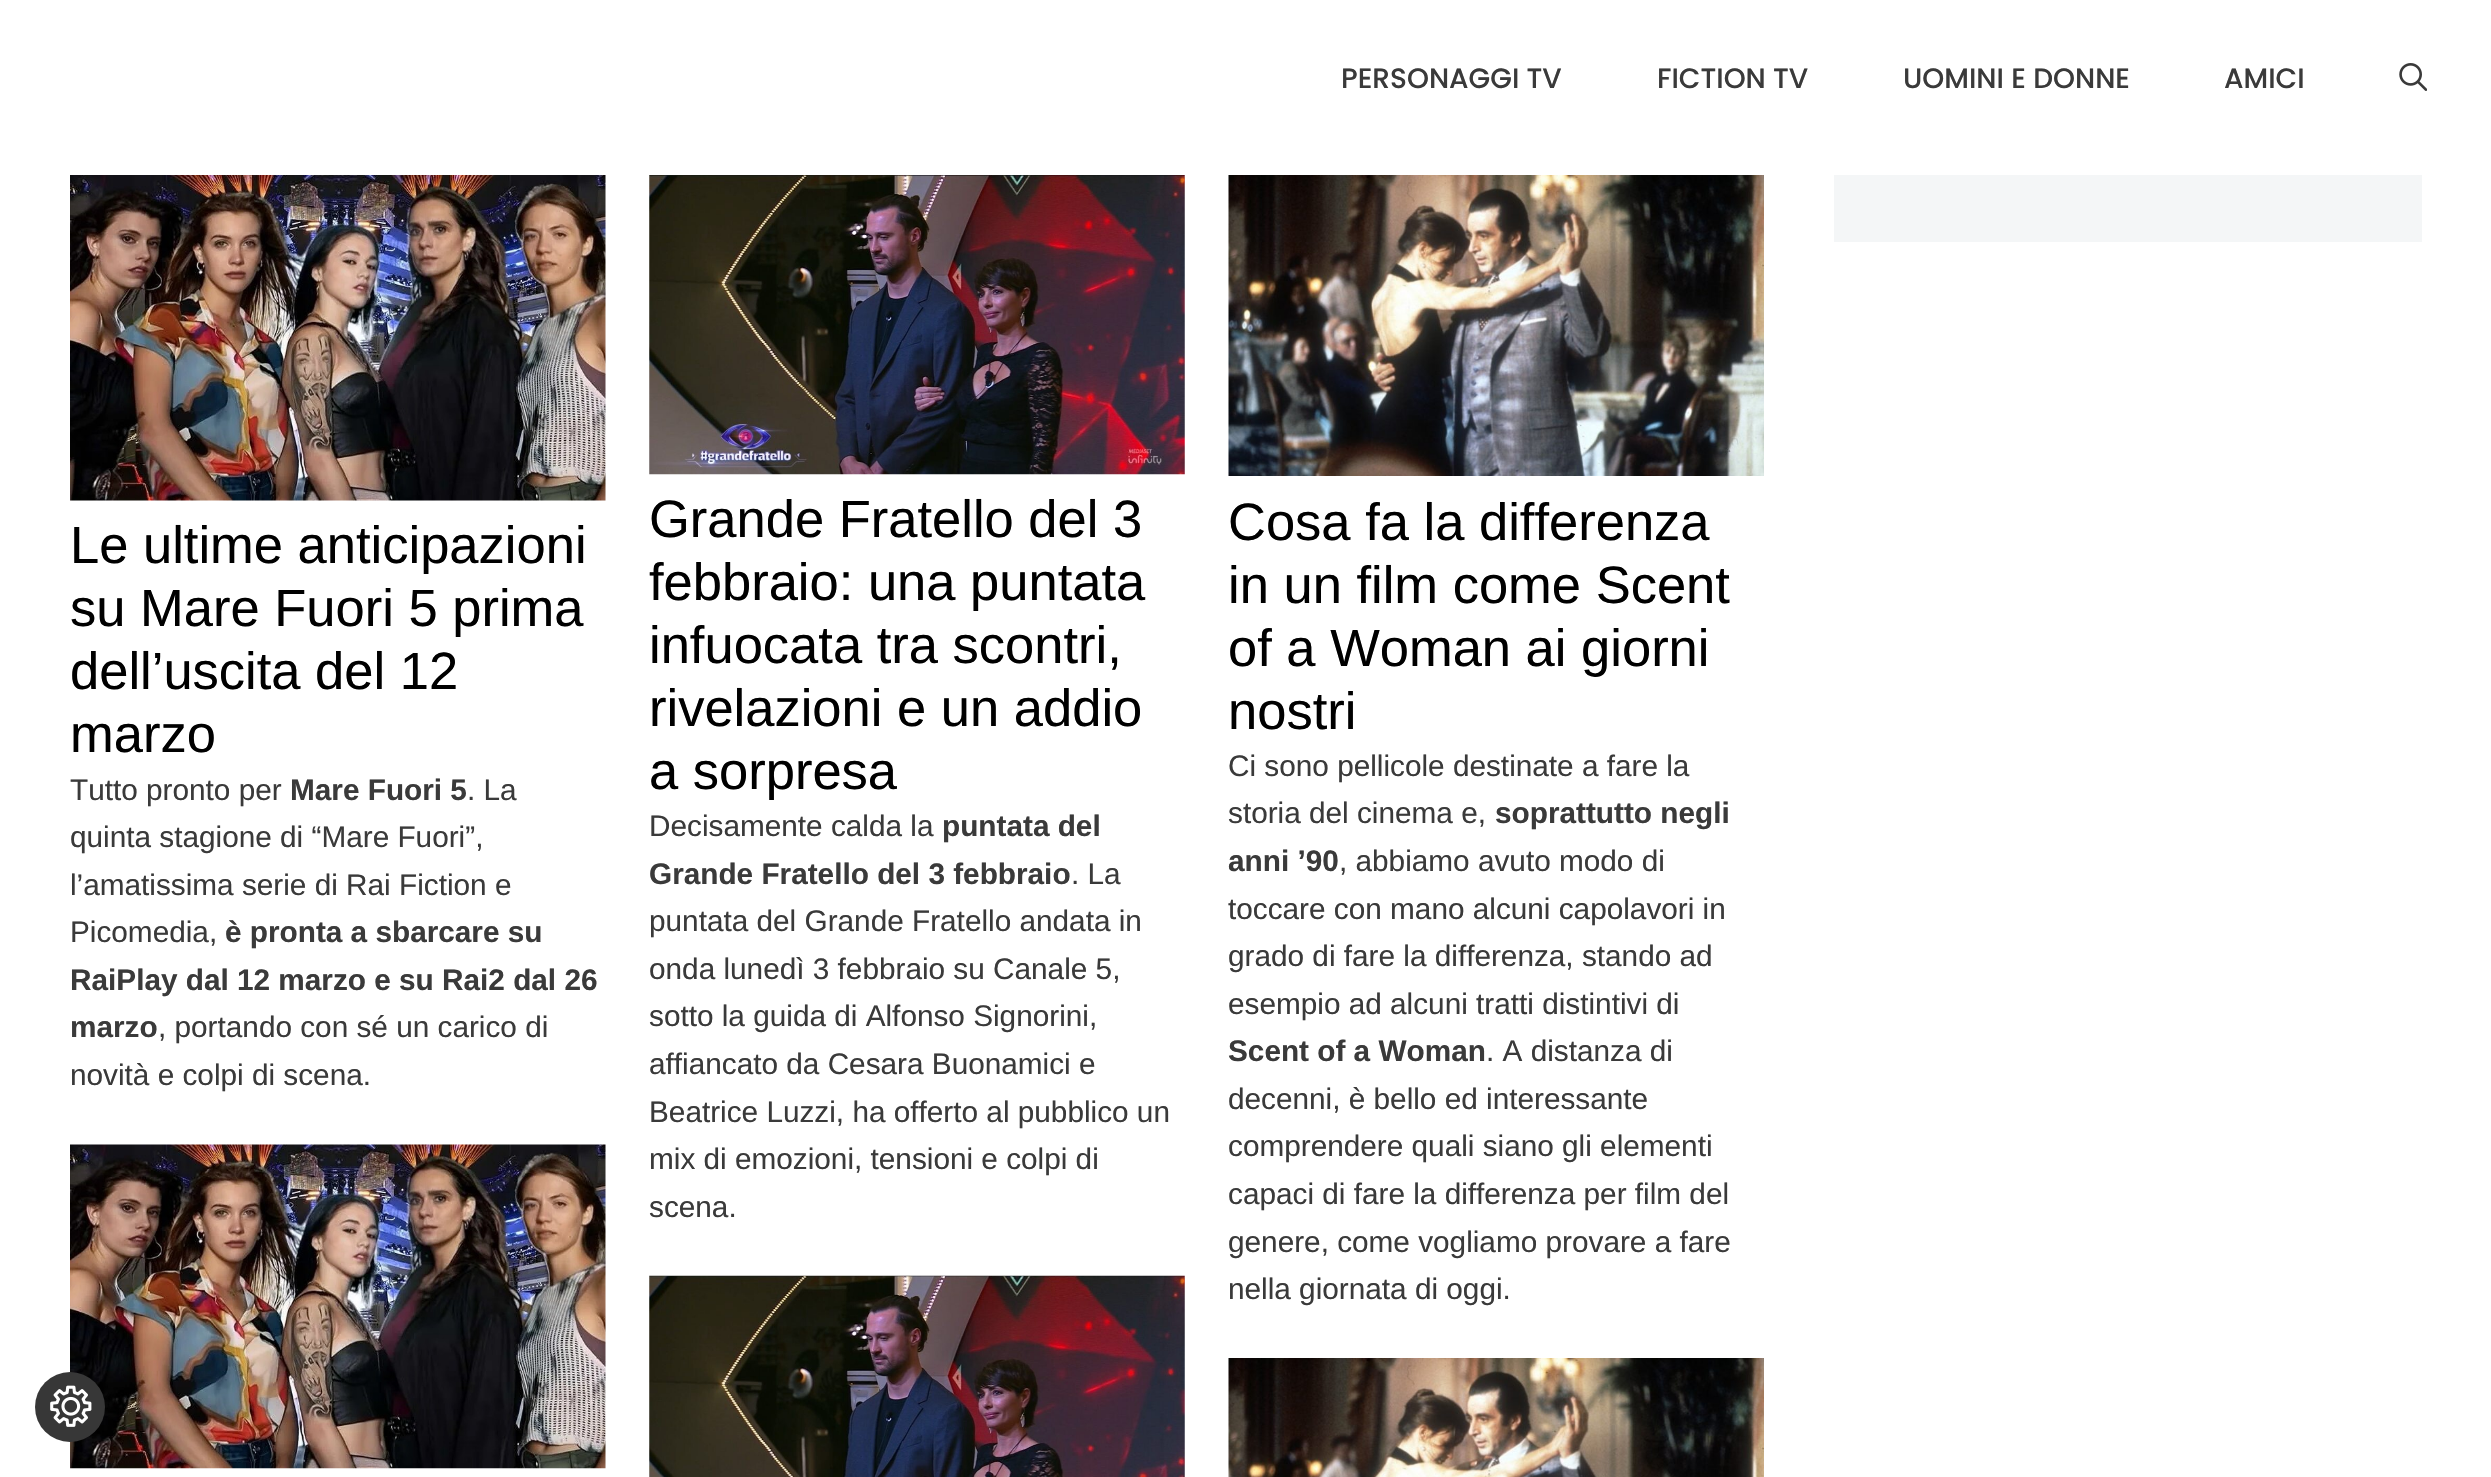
void draw(SkCanvas* canvas) {
    SkPaint paint;
    paint.setAntiAlias(true);
    auto face = [&](const char* family, int weight, float size, bool italic = false) {
        SkFontStyle style(weight, SkFontStyle::kNormal_Width,
            italic ? SkFontStyle::kItalic_Slant : SkFontStyle::kUpright_Slant);
        SkFont result(fontMgr->matchFamilyStyle(family, style), size);
        result.setSubpixel(true);
        return result;
    };
    auto write = [&](const char* s, float x, float y, const SkFont& font, SkColor color) {
        SkPaint ink(SkColor4f::FromColor(color));
        ink.setAntiAlias(true);
        canvas->drawString(s, x, y, font, ink);
    };
    auto block = [&](float x, float y, float w, float h, SkColor color) {
        SkPaint ink(SkColor4f::FromColor(color));
        ink.setAntiAlias(true);
        canvas->drawRect(SkRect::MakeXYWH(x, y, w, h), ink);
    };
    auto paste = [&](const char* path, float x, float y, float w, float h) {
        auto image = SkImages::DeferredFromEncodedData(SkData::MakeFromFileName(path));
        canvas->drawImageRect(image, SkRect::MakeXYWH(x, y, w, h), SkSamplingOptions());
    };
    canvas->clear(SK_ColorWHITE);
    auto kFont1 = face("Poppins", 500, 28);
    write("PERSONAGGI TV", 1341, 88, kFont1, SkColorSetRGB(58, 58, 58));
    write("FICTION TV", 1657, 88, kFont1, SkColorSetRGB(58, 58, 58));
    write("UOMINI E DONNE", 1903, 88, kFont1, SkColorSetRGB(58, 58, 58));
    write("AMICI", 2224, 88, kFont1, SkColorSetRGB(58, 58, 58));
    paste("pic1.png", 2399, 63, 28, 28);
    block(1834, 175, 588, 67, SkColorSetRGB(244, 246, 247));
    paste("pic2.png", 70, 175, 536, 326);
    auto kFont2 = face("Liberation Sans", 400, 52.5f);
    write("Le ultime anticipazioni", 70, 563, kFont2, SK_ColorBLACK);
    write("su Mare Fuori 5 prima", 70, 626, kFont2, SK_ColorBLACK);
    write("dell’uscita del 12", 70, 689, kFont2, SK_ColorBLACK);
    write("marzo", 70, 752, kFont2, SK_ColorBLACK);
    auto kFont3 = face("Liberation Sans", 400, 29.75f);
    write("Tutto pronto per", 70, 800, kFont3, SkColorSetRGB(58, 58, 58));
    auto kFont4 = face("Liberation Sans", 700, 29.75f);
    write("Mare Fuori 5", 290, 800, kFont4, SkColorSetRGB(58, 58, 58));
    write(". La", 467, 800, kFont3, SkColorSetRGB(58, 58, 58));
    write("quinta stagione di “Mare Fuori”,", 70, 847, kFont3, SkColorSetRGB(58, 58, 58));
    write("l’amatissima serie di Rai Fiction e", 70, 895, kFont3, SkColorSetRGB(58, 58, 58));
    write("Picomedia,", 70, 942, kFont3, SkColorSetRGB(58, 58, 58));
    write("è pronta a sbarcare su", 225, 942, kFont4, SkColorSetRGB(58, 58, 58));
    write("RaiPlay dal 12 marzo e su Rai2 dal 26", 70, 990, kFont4, SkColorSetRGB(58, 58, 58));
    write("marzo", 70, 1037, kFont4, SkColorSetRGB(58, 58, 58));
    write(", portando con sé un carico di", 158, 1037, kFont3, SkColorSetRGB(58, 58, 58));
    write("novità e colpi di scena.", 70, 1085, kFont3, SkColorSetRGB(58, 58, 58));
    paste("pic3.png", 70, 1144, 536, 325);
    paste("pic4.png", 649, 175, 536, 300);
    write("Grande Fratello del 3", 649, 537, kFont2, SK_ColorBLACK);
    write("febbraio: una puntata", 649, 600, kFont2, SK_ColorBLACK);
    write("infuocata tra scontri,", 649, 663, kFont2, SK_ColorBLACK);
    write("rivelazioni e un addio", 649, 726, kFont2, SK_ColorBLACK);
    write("a sorpresa", 649, 789, kFont2, SK_ColorBLACK);
    write("Decisamente calda la", 649, 836, kFont3, SkColorSetRGB(58, 58, 58));
    write("puntata del", 942, 836, kFont4, SkColorSetRGB(58, 58, 58));
    write("Grande Fratello del 3 febbraio", 649, 884, kFont4, SkColorSetRGB(58, 58, 58));
    write(". La", 1071, 884, kFont3, SkColorSetRGB(58, 58, 58));
    write("puntata del Grande Fratello andata in", 649, 931, kFont3, SkColorSetRGB(58, 58, 58));
    write("onda lunedì 3 febbraio su Canale 5,", 649, 979, kFont3, SkColorSetRGB(58, 58, 58));
    write("sotto la guida di Alfonso Signorini,", 649, 1026, kFont3, SkColorSetRGB(58, 58, 58));
    write("affiancato da Cesara Buonamici e", 649, 1074, kFont3, SkColorSetRGB(58, 58, 58));
    write("Beatrice Luzzi, ha offerto al pubblico un", 649, 1122, kFont3, SkColorSetRGB(58, 58, 58));
    write("mix di emozioni, tensioni e colpi di", 649, 1169, kFont3, SkColorSetRGB(58, 58, 58));
    write("scena.", 649, 1217, kFont3, SkColorSetRGB(58, 58, 58));
    paste("pic5.png", 649, 1275, 536, 202);
    paste("pic6.png", 1228, 175, 536, 301);
    write("Cosa fa la differenza", 1228, 540, kFont2, SK_ColorBLACK);
    write("in un film come Scent", 1228, 603, kFont2, SK_ColorBLACK);
    write("of a Woman ai giorni", 1228, 666, kFont2, SK_ColorBLACK);
    write("nostri", 1228, 729, kFont2, SK_ColorBLACK);
    write("Ci sono pellicole destinate a fare la", 1228, 776, kFont3, SkColorSetRGB(58, 58, 58));
    write("storia del cinema e,", 1228, 823, kFont3, SkColorSetRGB(58, 58, 58));
    write("soprattutto negli", 1495, 823, kFont4, SkColorSetRGB(58, 58, 58));
    write("anni ’90", 1228, 871, kFont4, SkColorSetRGB(58, 58, 58));
    write(", abbiamo avuto modo di", 1339, 871, kFont3, SkColorSetRGB(58, 58, 58));
    write("toccare con mano alcuni capolavori in", 1228, 919, kFont3, SkColorSetRGB(58, 58, 58));
    write("grado di fare la differenza, stando ad", 1228, 966, kFont3, SkColorSetRGB(58, 58, 58));
    write("esempio ad alcuni tratti distintivi di", 1228, 1014, kFont3, SkColorSetRGB(58, 58, 58));
    write("Scent of a Woman", 1228, 1061, kFont4, SkColorSetRGB(58, 58, 58));
    write(". A distanza di", 1486, 1061, kFont3, SkColorSetRGB(58, 58, 58));
    write("decenni, è bello ed interessante", 1228, 1109, kFont3, SkColorSetRGB(58, 58, 58));
    write("comprendere quali siano gli elementi", 1228, 1156, kFont3, SkColorSetRGB(58, 58, 58));
    write("capaci di fare la differenza per film del", 1228, 1204, kFont3, SkColorSetRGB(58, 58, 58));
    write("genere, come vogliamo provare a fare", 1228, 1252, kFont3, SkColorSetRGB(58, 58, 58));
    write("nella giornata di oggi.", 1228, 1299, kFont3, SkColorSetRGB(58, 58, 58));
    paste("pic7.png", 1228, 1358, 536, 119);
    paint.setColor(SkColorSetRGB(55, 55, 55));
    canvas->drawCircle(70, 1407, 35, paint);
    paste("pic8.png", 50, 1385, 42, 42);
}
